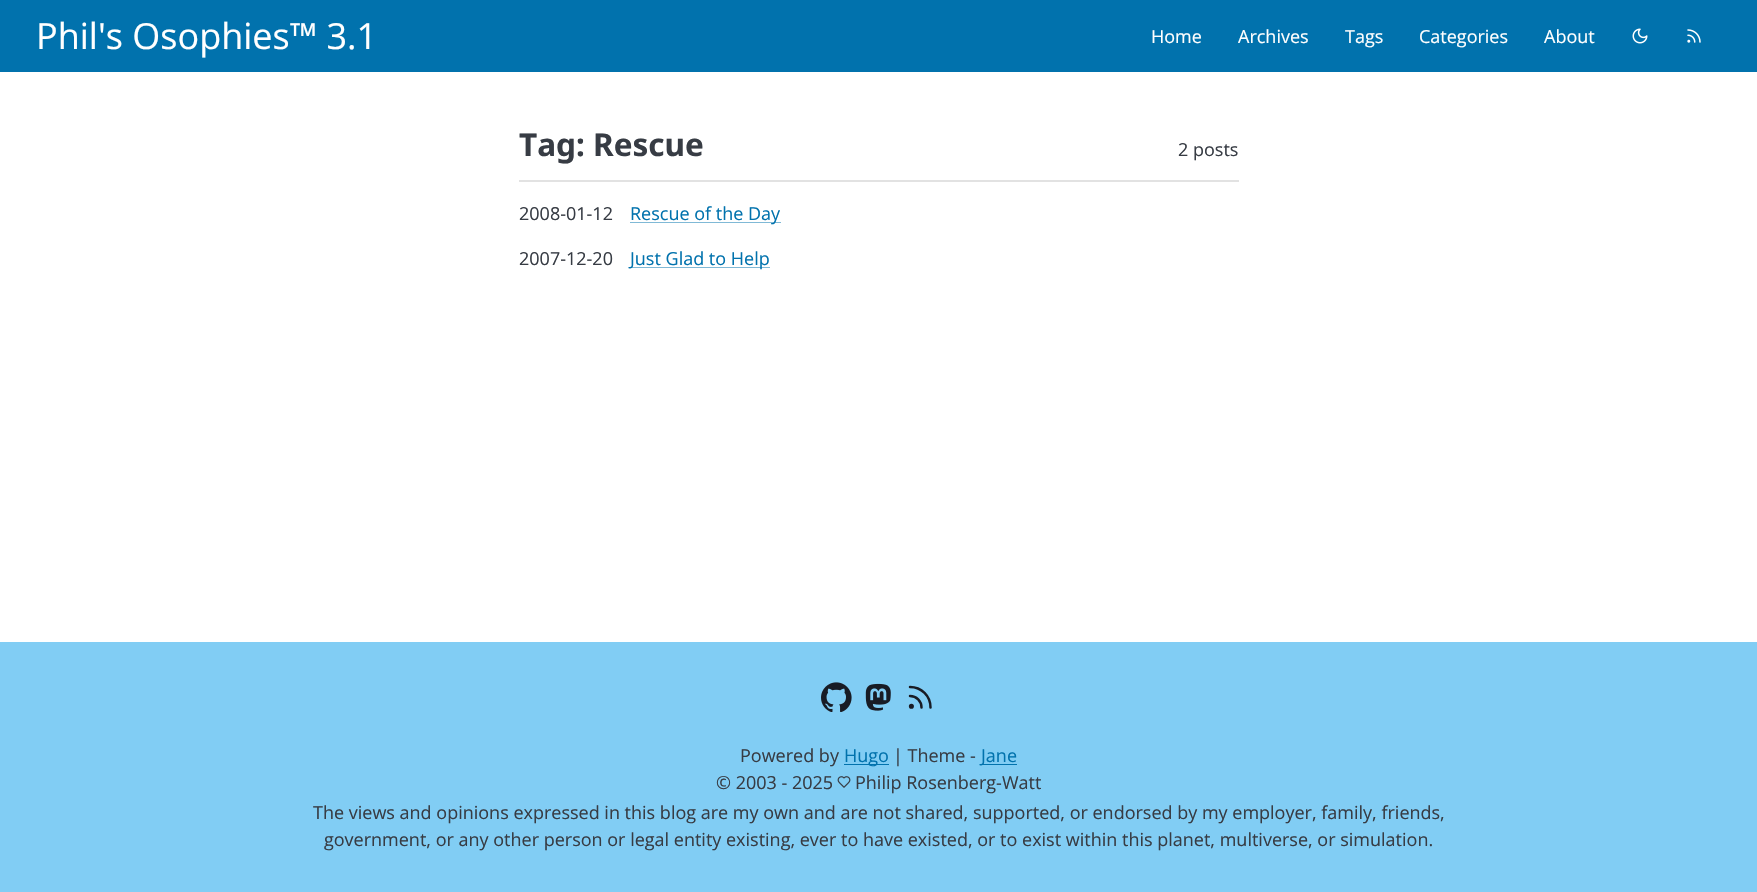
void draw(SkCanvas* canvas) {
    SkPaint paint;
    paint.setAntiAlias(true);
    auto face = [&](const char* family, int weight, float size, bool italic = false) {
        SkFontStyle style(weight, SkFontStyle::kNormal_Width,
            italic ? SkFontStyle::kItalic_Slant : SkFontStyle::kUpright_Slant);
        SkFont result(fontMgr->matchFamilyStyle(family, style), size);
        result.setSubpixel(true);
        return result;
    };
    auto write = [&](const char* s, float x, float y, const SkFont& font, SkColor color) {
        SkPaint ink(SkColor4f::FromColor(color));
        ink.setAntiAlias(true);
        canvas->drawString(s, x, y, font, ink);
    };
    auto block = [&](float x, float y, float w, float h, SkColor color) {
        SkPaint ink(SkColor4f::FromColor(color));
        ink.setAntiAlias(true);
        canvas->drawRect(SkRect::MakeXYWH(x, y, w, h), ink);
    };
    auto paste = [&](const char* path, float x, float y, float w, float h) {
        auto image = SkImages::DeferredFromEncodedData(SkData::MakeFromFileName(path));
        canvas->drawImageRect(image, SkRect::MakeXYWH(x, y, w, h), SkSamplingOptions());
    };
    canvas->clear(SK_ColorWHITE);
    block(0, 0, 1757, 72, SkColorSetRGB(1, 114, 173));
    auto kFont1 = face("Open Sans", 400, 36);
    write("Phil's Osophies™ 3.1", 36, 49, kFont1, SK_ColorWHITE);
    auto kFont2 = face("Open Sans", 400, 18);
    write("Home", 1151, 43, kFont2, SK_ColorWHITE);
    write("Archives", 1238, 43, kFont2, SK_ColorWHITE);
    write("Tags", 1345, 43, kFont2, SK_ColorWHITE);
    write("Categories", 1419, 43, kFont2, SK_ColorWHITE);
    write("About", 1544, 43, kFont2, SK_ColorWHITE);
    paste("pic1.png", 1632, 28, 16, 16);
    paste("pic2.png", 1687, 29, 14, 14);
    block(519, 180, 720, 2, SkColorSetRGB(226, 226, 226));
    auto kFont3 = face("Noto Sans", 700, 31.5f);
    write("Tag: Rescue", 519, 156, kFont3, SkColorSetRGB(55, 60, 68));
    write("2 posts", 1178, 156, kFont2, SkColorSetRGB(55, 60, 68));
    write("2008-01-12", 519, 220, kFont2, SkColorSetRGB(55, 60, 68));
    block(630, 222, 151, 1, SkColorSetRGB(128, 185, 214));
    write("Rescue of the Day", 630, 220, kFont2, SkColorSetRGB(1, 114, 173));
    write("2007-12-20", 519, 265, kFont2, SkColorSetRGB(55, 60, 68));
    block(630, 267, 140, 1, SkColorSetRGB(128, 185, 214));
    write("Just Glad to Help", 630, 265, kFont2, SkColorSetRGB(1, 114, 173));
    block(0, 642, 1757, 250, SkColorSetRGB(129, 205, 244));
    paste("pic3.png", 821, 682, 31, 30);
    paste("pic4.png", 865, 683, 26, 28);
    paint.setStyle(SkPaint::kStroke_Style);
    paint.setStrokeWidth(2.5f);
    paint.setStrokeCap(SkPaint::kRound_Cap);
    paint.setStrokeJoin(SkPaint::kRound_Join);
    paint.setColor(SkColorSetRGB(24, 28, 37));
    canvas->drawPath(SkPathBuilder().moveTo(910, 696).cubicTo(916.5f, 696, 921.5f, 701, 921.5f, 707.5f).moveTo(910, 687).cubicTo(921.5f, 687, 930.5f, 696, 930.5f, 707.5f).detach(), paint);
    paint.setStrokeCap(SkPaint::kButt_Cap);
    paint.setStrokeJoin(SkPaint::kMiter_Join);
    canvas->drawCircle(911.4f, 706.2f, 1.3f, paint);
    write("Powered by", 740, 762, kFont2, SkColorSetRGB(55, 60, 68));
    block(844, 764, 45, 1, SkColorSetRGB(1, 114, 173));
    write("Hugo", 844, 762, kFont2, SkColorSetRGB(1, 114, 173));
    write("| Theme -", 893, 762, kFont2, SkColorSetRGB(55, 60, 68));
    block(981, 764, 36, 1, SkColorSetRGB(1, 114, 173));
    write("Jane", 981, 762, kFont2, SkColorSetRGB(1, 114, 173));
    write("© 2003 - 2025", 716, 789, kFont2, SkColorSetRGB(55, 60, 68));
    paste("pic5.png", 837, 776, 14, 12);
    write("Philip Rosenberg-Watt", 855, 789, kFont2, SkColorSetRGB(55, 60, 68));
    write("The views and opinions expressed in this blog are my own and are not shared, supported, or endorsed by my employer, family, friends,", 313, 819, kFont2, SkColorSetRGB(55, 60, 68));
    write("government, or any other person or legal entity existing, ever to have existed, or to exist within this planet, multiverse, or simulation.", 324, 846, kFont2, SkColorSetRGB(55, 60, 68));
}
